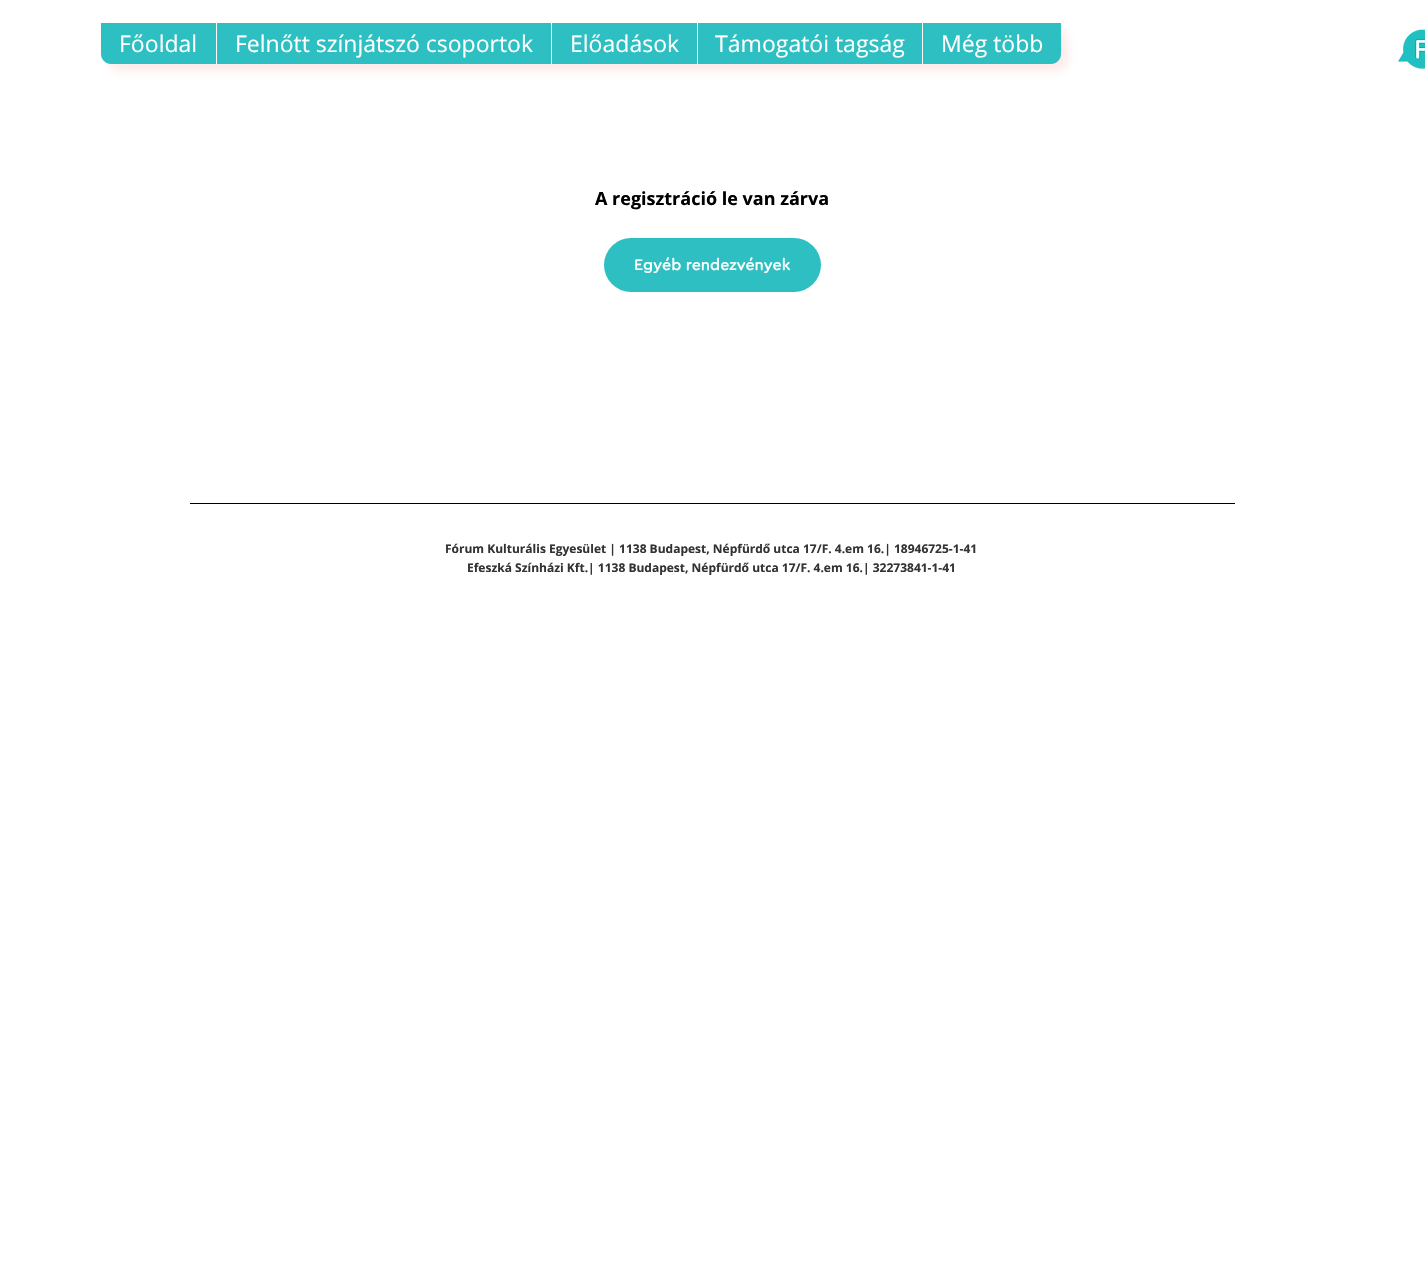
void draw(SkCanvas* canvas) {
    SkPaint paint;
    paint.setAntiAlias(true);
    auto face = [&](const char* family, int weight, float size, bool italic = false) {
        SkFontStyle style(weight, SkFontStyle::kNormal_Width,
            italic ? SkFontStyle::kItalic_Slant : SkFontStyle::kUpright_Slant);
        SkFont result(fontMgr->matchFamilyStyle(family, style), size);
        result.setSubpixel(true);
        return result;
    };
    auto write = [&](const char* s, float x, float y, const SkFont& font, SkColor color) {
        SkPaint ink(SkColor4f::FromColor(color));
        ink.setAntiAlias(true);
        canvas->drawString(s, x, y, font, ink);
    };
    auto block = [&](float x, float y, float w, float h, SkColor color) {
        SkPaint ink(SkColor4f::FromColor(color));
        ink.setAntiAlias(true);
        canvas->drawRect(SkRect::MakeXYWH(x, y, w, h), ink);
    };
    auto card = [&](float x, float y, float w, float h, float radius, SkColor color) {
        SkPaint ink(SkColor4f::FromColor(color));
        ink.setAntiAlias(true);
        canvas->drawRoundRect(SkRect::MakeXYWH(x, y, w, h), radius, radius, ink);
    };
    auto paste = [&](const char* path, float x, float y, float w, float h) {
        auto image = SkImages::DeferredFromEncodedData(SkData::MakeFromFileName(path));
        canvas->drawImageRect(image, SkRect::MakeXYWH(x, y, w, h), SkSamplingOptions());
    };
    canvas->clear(SK_ColorWHITE);
    paint.setColor(SkColorSetARGB(26, 218, 57, 43));
    paint.setMaskFilter(SkMaskFilter::MakeBlur(kNormal_SkBlurStyle, 5));
    canvas->drawRoundRect(SkRect::MakeXYWH(108, 30, 960, 41), 10, 10, paint);
    paint.setMaskFilter(nullptr);
    paint.setColor(SkColorSetRGB(45, 191, 194));
    canvas->drawPath(SkPathBuilder().moveTo(101, 23).lineTo(1061, 23).lineTo(1061, 54).cubicTo(1061, 59.5f, 1056.5f, 64, 1051, 64).lineTo(111, 64).cubicTo(105.5f, 64, 101, 59.5f, 101, 54).close().detach(), paint);
    auto kFont1 = face("Open Sans", 400, 23);
    write("Főoldal", 119, 52, kFont1, SK_ColorWHITE);
    block(216, 23, 1, 41, SkColorSetRGB(250, 250, 250));
    write("Felnőtt színjátszó csoportok", 235, 52, kFont1, SK_ColorWHITE);
    block(551, 23, 1, 41, SkColorSetRGB(250, 250, 250));
    write("Előadások", 570, 52, kFont1, SK_ColorWHITE);
    block(697, 23, 1, 41, SkColorSetRGB(250, 250, 250));
    write("Támogatói tagság", 715, 52, kFont1, SK_ColorWHITE);
    block(922, 23, 1, 41, SkColorSetRGB(250, 250, 250));
    write("Még több", 941, 52, kFont1, SK_ColorWHITE);
    paste("pic1.png", 1398, 29, 27, 40);
    auto kFont2 = face("Open Sans", 700, 18);
    write("A regisztráció le van zárva", 595, 205, kFont2, SK_ColorBLACK);
    card(604, 238, 217, 54, 27, SkColorSetRGB(45, 191, 194));
    auto kFont3 = face("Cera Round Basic", 500, 16);
    write("Egyéb rendezvények", 634, 270, kFont3, SK_ColorWHITE);
    block(190, 503, 1045, 1, SK_ColorBLACK);
    auto kFont4 = face("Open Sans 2", 700, 12);
    write("Fórum Kulturális Egyesület | 1138 Budapest, Népfürdő utca 17/F. 4.em 16.| 18946725-1-41", 445, 553, kFont4, SkColorSetRGB(51, 51, 51));
    write("Efeszká Színházi Kft.| 1138 Budapest, Népfürdő utca 17/F. 4.em 16.| 32273841-1-41", 467, 572, kFont4, SkColorSetRGB(51, 51, 51));
}
